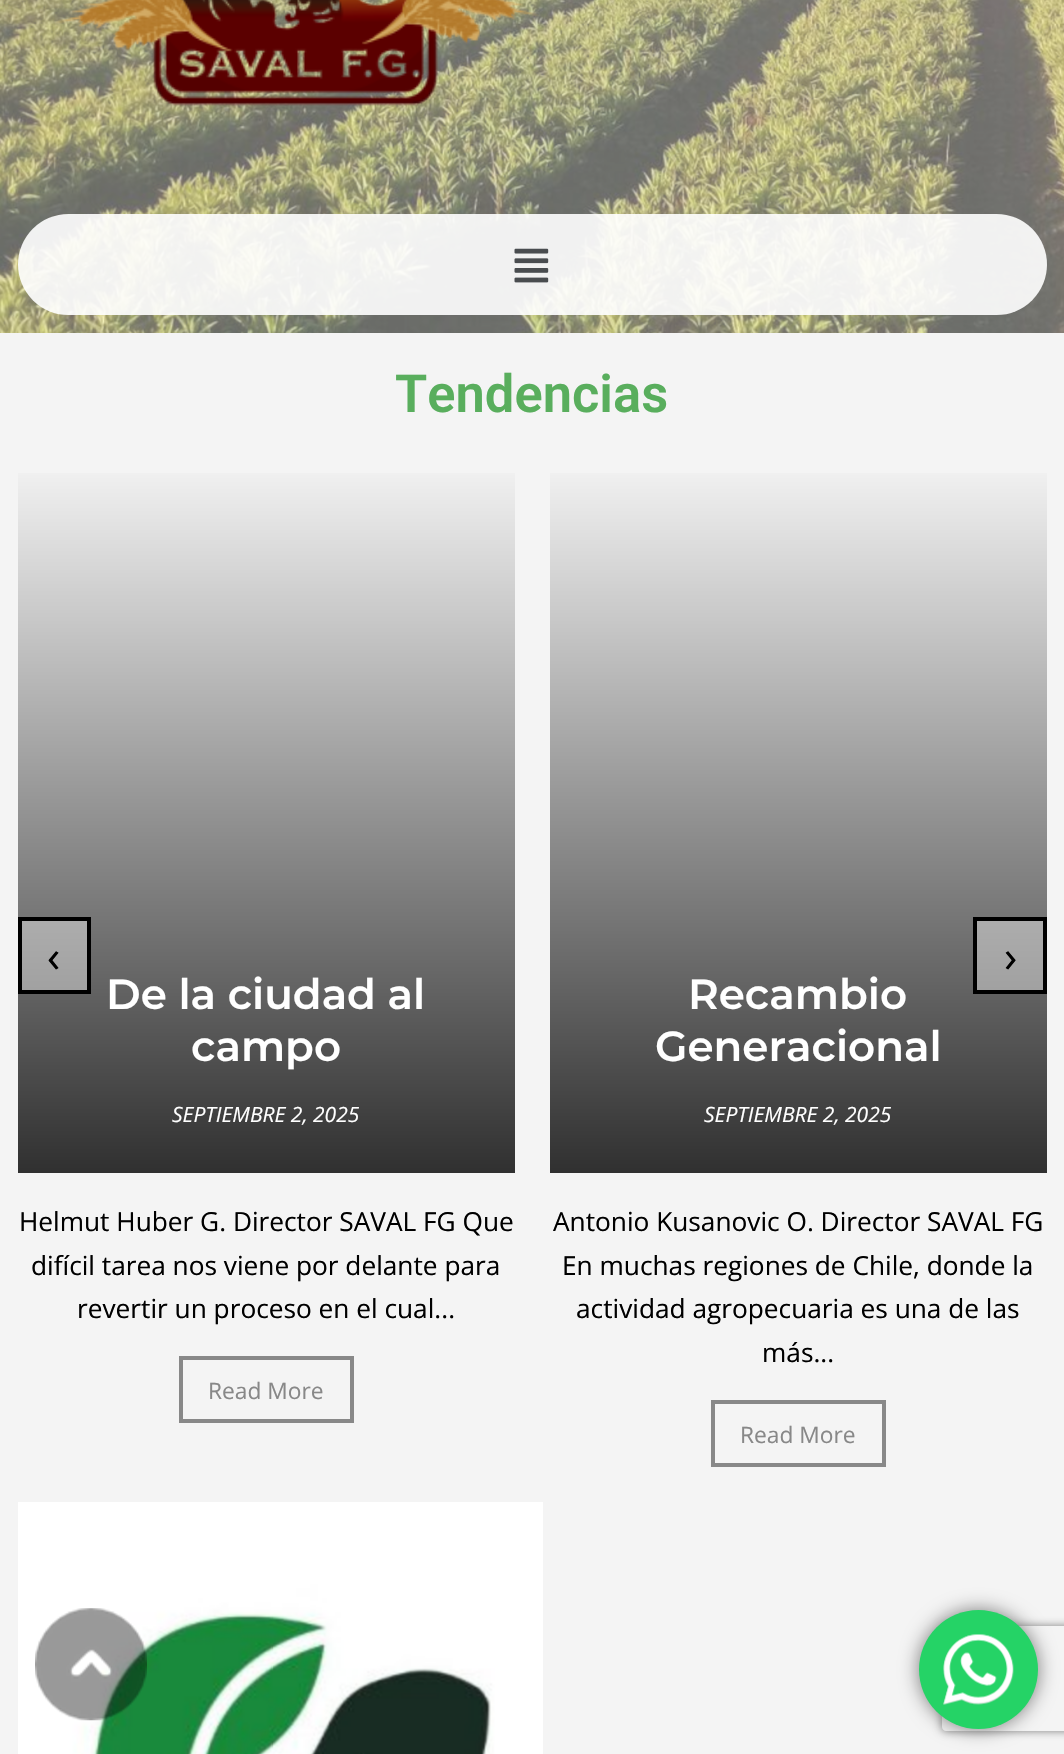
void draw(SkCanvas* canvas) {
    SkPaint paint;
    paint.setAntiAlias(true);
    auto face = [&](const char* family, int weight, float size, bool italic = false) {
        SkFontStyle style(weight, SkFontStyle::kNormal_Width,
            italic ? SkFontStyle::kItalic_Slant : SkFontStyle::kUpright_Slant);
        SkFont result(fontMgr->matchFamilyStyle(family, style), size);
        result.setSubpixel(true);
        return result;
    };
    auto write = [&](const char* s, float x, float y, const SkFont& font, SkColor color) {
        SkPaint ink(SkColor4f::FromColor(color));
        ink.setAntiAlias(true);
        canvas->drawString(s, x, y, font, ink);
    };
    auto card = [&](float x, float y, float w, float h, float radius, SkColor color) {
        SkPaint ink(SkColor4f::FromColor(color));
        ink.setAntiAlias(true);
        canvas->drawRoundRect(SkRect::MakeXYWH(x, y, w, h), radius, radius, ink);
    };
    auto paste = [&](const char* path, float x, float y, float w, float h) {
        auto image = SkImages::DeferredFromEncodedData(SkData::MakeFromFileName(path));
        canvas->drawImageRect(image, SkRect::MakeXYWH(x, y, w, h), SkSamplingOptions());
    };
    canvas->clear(SkColorSetRGB(244, 244, 244));
    paste("pic1.png", 0, 0, 1064, 333);
    paste("pic2.png", 56, 0, 483, 106);
    card(18, 214, 1029, 101, 50.5f, SkColorSetARGB(230, 255, 255, 255));
    paste("pic3.png", 514, 248, 35, 35);
    auto kFont1 = face("Roboto", 600, 52.5f);
    write("Tendencias", 395, 412, kFont1, SkColorSetRGB(89, 174, 93));
    {
        const SkColor colors[] = {SkColorSetRGB(240, 240, 240), SkColorSetRGB(48, 48, 48)};
        const float stops[] = {0, 1};
        const SkPoint ends[] = {{266, 473}, {266, 1173}};
        paint.setShader(SkGradientShader::MakeLinear(ends, colors, stops, 2, SkTileMode::kClamp));
        paint.setAlpha(255);
    }
    canvas->drawRect(SkRect::MakeXYWH(18, 473, 497, 700), paint);
    {
        const SkColor colors[] = {SkColorSetRGB(246, 246, 246), SkColorSetRGB(131, 131, 131)};
        const float stops[] = {0, 1};
        const SkPoint ends[] = {{266, 473}, {266, 1173}};
        paint.setShader(SkGradientShader::MakeLinear(ends, colors, stops, 2, SkTileMode::kClamp));
        paint.setAlpha(255);
    }
    canvas->drawRect(SkRect::MakeXYWH(22, 921, 65, 69), paint);
    paint.setStyle(SkPaint::kStroke_Style);
    paint.setStrokeWidth(4);
    paint.setShader(nullptr);
    paint.setColor(SK_ColorBLACK);
    canvas->drawRect(SkRect::MakeXYWH(20, 919, 69, 73), paint);
    auto kFont2 = face("Open Sans", 400, 44);
    write("‹", 47, 972, kFont2, SK_ColorBLACK);
    paint.setStyle(SkPaint::kFill_Style);
    {
        const SkColor colors[] = {SkColorSetRGB(240, 240, 240), SkColorSetRGB(48, 48, 48)};
        const float stops[] = {0, 1};
        const SkPoint ends[] = {{798, 473}, {798, 1173}};
        paint.setShader(SkGradientShader::MakeLinear(ends, colors, stops, 2, SkTileMode::kClamp));
        paint.setAlpha(255);
    }
    canvas->drawRect(SkRect::MakeXYWH(550, 473, 497, 700), paint);
    {
        const SkColor colors[] = {SkColorSetRGB(246, 246, 246), SkColorSetRGB(131, 131, 131)};
        const float stops[] = {0, 1};
        const SkPoint ends[] = {{798, 473}, {798, 1173}};
        paint.setShader(SkGradientShader::MakeLinear(ends, colors, stops, 2, SkTileMode::kClamp));
        paint.setAlpha(255);
    }
    canvas->drawRect(SkRect::MakeXYWH(977, 921, 66, 69), paint);
    paint.setStyle(SkPaint::kStroke_Style);
    paint.setShader(nullptr);
    paint.setColor(SK_ColorBLACK);
    canvas->drawRect(SkRect::MakeXYWH(975, 919, 70, 73), paint);
    write("›", 1004, 972, kFont2, SK_ColorBLACK);
    auto kFont3 = face("Montserrat", 600, 42);
    write("De la ciudad al", 106, 1009, kFont3, SK_ColorWHITE);
    write("campo", 191, 1061, kFont3, SK_ColorWHITE);
    auto kFont4 = face("Open Sans", 400, 21, true);
    write("SEPTIEMBRE 2, 2025", 172, 1122, kFont4, SK_ColorWHITE);
    auto kFont5 = face("Open Sans", 400, 26.25f);
    write("Helmut Huber G. Director SAVAL FG Que", 19, 1231, kFont5, SK_ColorBLACK);
    write("difícil tarea nos viene por delante para", 31, 1275, kFont5, SK_ColorBLACK);
    write("revertir un proceso en el cual...", 77, 1318, kFont5, SK_ColorBLACK);
    paint.setColor(SkColorSetRGB(136, 136, 136));
    canvas->drawRect(SkRect::MakeXYWH(181, 1358, 171, 63), paint);
    auto kFont6 = face("Open Sans", 400, 22.75f);
    write("Read More", 208, 1399, kFont6, SkColorSetRGB(136, 136, 136));
    write("Recambio", 688, 1009, kFont3, SK_ColorWHITE);
    write("Generacional", 655, 1061, kFont3, SK_ColorWHITE);
    write("SEPTIEMBRE 2, 2025", 704, 1122, kFont4, SK_ColorWHITE);
    write("Antonio Kusanovic O. Director SAVAL FG", 553, 1231, kFont5, SK_ColorBLACK);
    write("En muchas regiones de Chile, donde la", 562, 1275, kFont5, SK_ColorBLACK);
    write("actividad agropecuaria es una de las", 576, 1318, kFont5, SK_ColorBLACK);
    write("más...", 762, 1362, kFont5, SK_ColorBLACK);
    canvas->drawRect(SkRect::MakeXYWH(713, 1402, 171, 63), paint);
    write("Read More", 740, 1443, kFont6, SkColorSetRGB(136, 136, 136));
    paste("pic4.png", 18, 1502, 525, 252);
    paste("pic5.png", 35, 1608, 112, 113);
    paint.setStyle(SkPaint::kFill_Style);
    paint.setColor(SkColorSetARGB(128, 0, 0, 0));
    paint.setMaskFilter(SkMaskFilter::MakeBlur(kNormal_SkBlurStyle, 9.5f));
    canvas->drawRoundRect(SkRect::MakeXYWH(919, 1610, 119, 119), 59.5f, 59.5f, paint);
    paint.setMaskFilter(nullptr);
    canvas->save();
    canvas->clipPath(SkPathBuilder(SkPathFillType::kEvenOdd).moveTo(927, 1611).lineTo(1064, 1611).lineTo(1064, 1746).lineTo(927, 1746).close().moveTo(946, 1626).lineTo(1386, 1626).cubicTo(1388, 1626, 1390, 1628, 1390, 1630).lineTo(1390, 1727).cubicTo(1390, 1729, 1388, 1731, 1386, 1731).lineTo(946, 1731).cubicTo(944, 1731, 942, 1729, 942, 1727).lineTo(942, 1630).cubicTo(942, 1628, 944, 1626, 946, 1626).close().detach(), true);
    paint.setColor(SkColorSetRGB(128, 128, 128));
    paint.setMaskFilter(SkMaskFilter::MakeBlur(kNormal_SkBlurStyle, 4.5f));
    canvas->drawRoundRect(SkRect::MakeXYWH(942, 1626, 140, 105), 4, 4, paint);
    paint.setMaskFilter(nullptr);
    canvas->restore();
    paint.setColor(SkColorSetRGB(37, 211, 102));
    canvas->drawCircle(978.5f, 1669.5f, 59.5f, paint);
    paste("pic6.png", 943, 1634, 71, 71);
}
